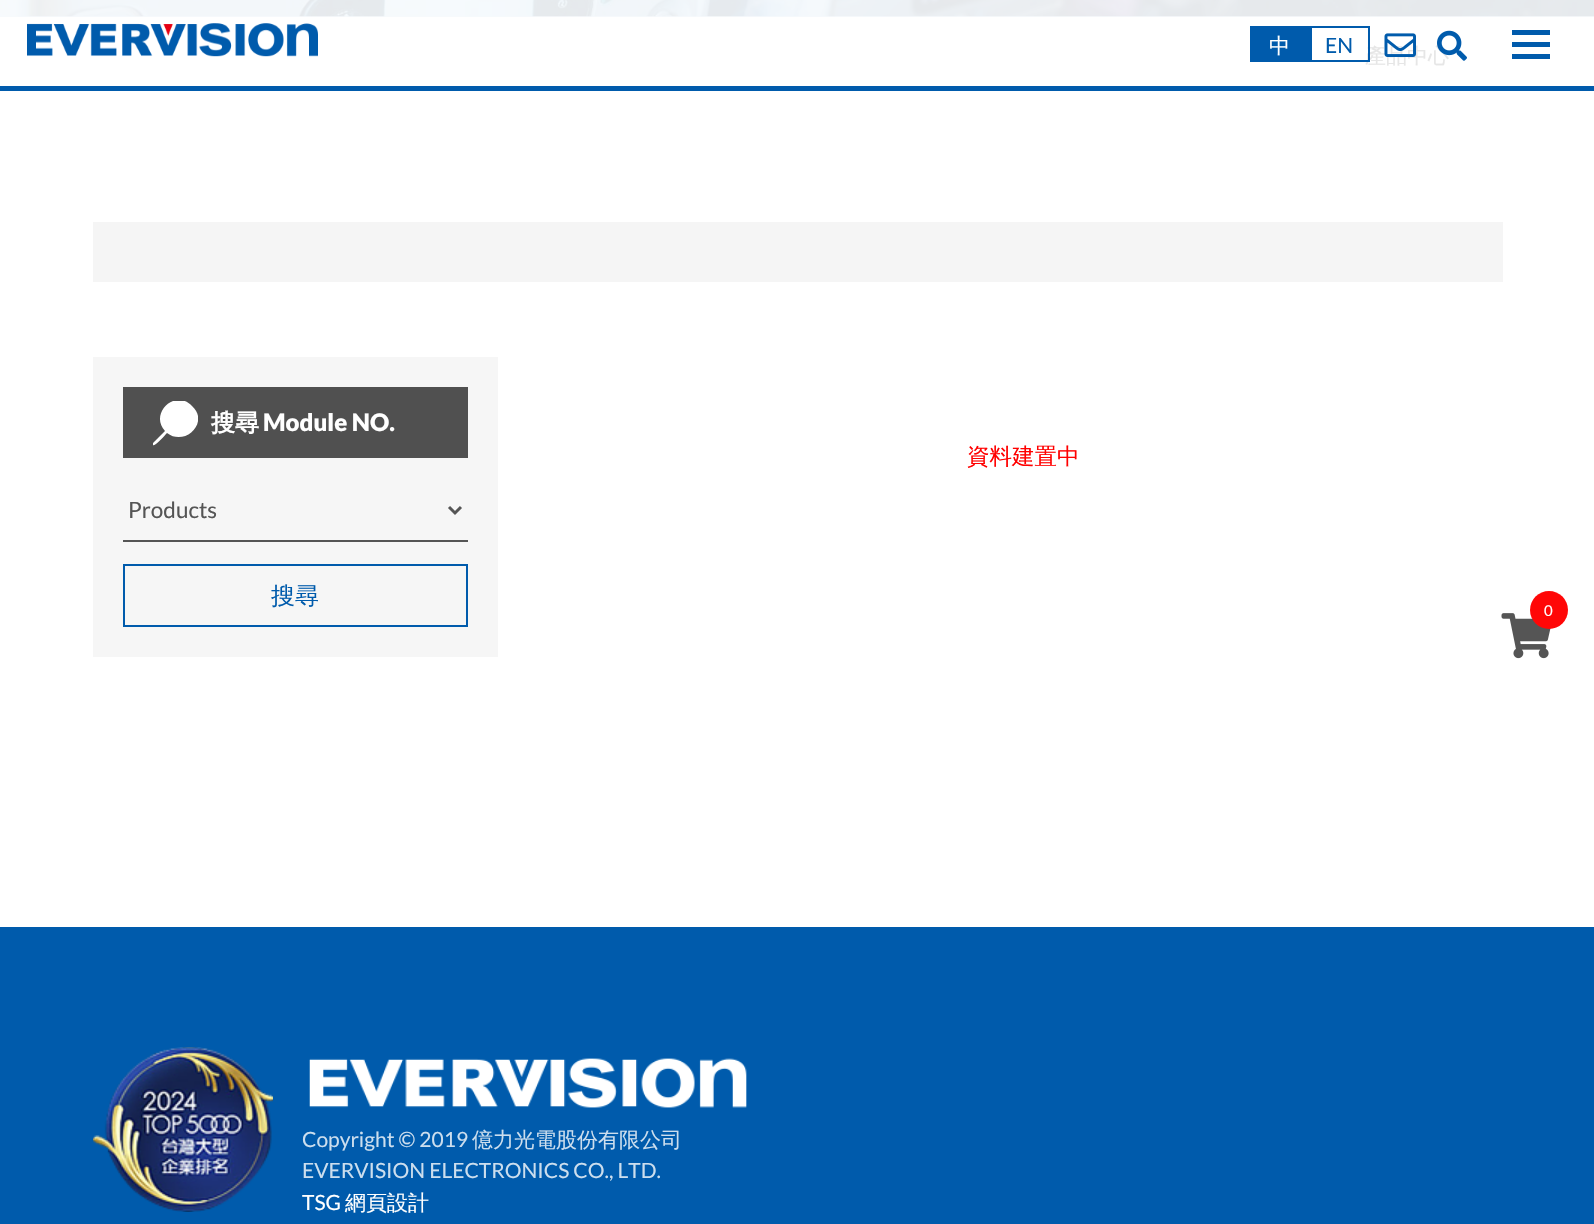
void draw(SkCanvas* canvas) {
    SkPaint paint;
    paint.setAntiAlias(true);
    auto face = [&](const char* family, int weight, float size, bool italic = false) {
        SkFontStyle style(weight, SkFontStyle::kNormal_Width,
            italic ? SkFontStyle::kItalic_Slant : SkFontStyle::kUpright_Slant);
        SkFont result(fontMgr->matchFamilyStyle(family, style), size);
        result.setSubpixel(true);
        return result;
    };
    auto write = [&](const char* s, float x, float y, const SkFont& font, SkColor color) {
        SkPaint ink(SkColor4f::FromColor(color));
        ink.setAntiAlias(true);
        canvas->drawString(s, x, y, font, ink);
    };
    auto block = [&](float x, float y, float w, float h, SkColor color) {
        SkPaint ink(SkColor4f::FromColor(color));
        ink.setAntiAlias(true);
        canvas->drawRect(SkRect::MakeXYWH(x, y, w, h), ink);
    };
    auto paste = [&](const char* path, float x, float y, float w, float h) {
        auto image = SkImages::DeferredFromEncodedData(SkData::MakeFromFileName(path));
        canvas->drawImageRect(image, SkRect::MakeXYWH(x, y, w, h), SkSamplingOptions());
    };
    canvas->clear(SK_ColorWHITE);
    block(0, 16, 1594, 1, SkColorSetRGB(247, 250, 253));
    paste("pic1.png", 0, 0, 1594, 17);
    paste("pic2.png", 27, 23, 291, 34);
    block(1250, 26, 60, 36, SkColorSetRGB(0, 91, 172));
    auto kFont1 = face("WenQuanYi Zen Hei", 500, 21);
    write("中", 1269, 53, kFont1, SK_ColorWHITE);
    write("產品中心", 1365, 63, kFont1, SkColorSetRGB(230, 230, 230));
    paint.setStyle(SkPaint::kStroke_Style);
    paint.setStrokeWidth(2);
    paint.setColor(SkColorSetRGB(0, 91, 172));
    canvas->drawRect(SkRect::MakeXYWH(1311, 27, 58, 34), paint);
    auto kFont2 = face("Lato", 400, 21);
    write("EN", 1325, 53, kFont2, SkColorSetRGB(0, 91, 172));
    paste("pic3.png", 1384, 33, 32, 24);
    paste("pic4.png", 1437, 30, 30, 31);
    block(1512, 30, 38, 5, SkColorSetRGB(0, 91, 172));
    block(1512, 42, 38, 5, SkColorSetRGB(0, 91, 172));
    block(1512, 54, 38, 5, SkColorSetRGB(0, 91, 172));
    block(0, 86, 1594, 5, SkColorSetRGB(0, 91, 172));
    block(93, 222, 1410, 60, SkColorSetRGB(245, 245, 245));
    block(93, 357, 405, 300, SkColorSetRGB(246, 246, 246));
    block(123, 387, 345, 71, SkColorSetRGB(80, 80, 80));
    canvas->save();
    canvas->clipRect(SkRect::MakeXYWH(153, 401, 45, 45));
    paint.setStyle(SkPaint::kFill_Style);
    paint.setColor(SK_ColorWHITE);
    canvas->drawPath(SkPathBuilder().moveTo(153, 445).cubicTo(155, 447, 165, 435, 167, 433).cubicTo(185, 447, 210, 422, 192, 406).cubicTo(175, 388, 149, 414, 165, 431).lineTo(153, 443).cubicTo(153, 443, 153, 444, 153, 445).close().detach(), paint);
    canvas->restore();
    auto kFont3 = face("WenQuanYi Zen Hei", 700, 24);
    write("搜尋", 211, 431, kFont3, SK_ColorWHITE);
    auto kFont4 = face("Lato", 900, 24);
    write("Module NO.", 263, 431, kFont4, SK_ColorWHITE);
    block(123, 540, 345, 2, SkColorSetRGB(85, 85, 85));
    paint.setStyle(SkPaint::kStroke_Style);
    paint.setStrokeWidth(3);
    paint.setColor(SkColorSetRGB(85, 85, 85));
    canvas->drawPath(SkPathBuilder().moveTo(449, 507).lineTo(455, 513).lineTo(461, 507).detach(), paint);
    auto kFont5 = face("Lato", 400, 22.5f);
    write("Products", 128, 518, kFont5, SkColorSetRGB(85, 85, 85));
    paint.setStrokeWidth(2);
    paint.setColor(SkColorSetRGB(0, 91, 172));
    canvas->drawRect(SkRect::MakeXYWH(124, 565, 343, 61), paint);
    auto kFont6 = face("WenQuanYi Zen Hei", 500, 24);
    write("搜尋", 271, 604, kFont6, SkColorSetRGB(0, 91, 172));
    auto kFont7 = face("WenQuanYi Zen Hei", 500, 22.5f);
    write("資料建置中", 967, 464, kFont7, SkColorSetRGB(255, 0, 0));
    paste("pic5.png", 1501, 613, 50, 46);
    paint.setStyle(SkPaint::kFill_Style);
    paint.setColor(SkColorSetRGB(255, 7, 7));
    canvas->drawCircle(1549, 610, 19, paint);
    auto kFont8 = face("Lato", 400, 15);
    write("0", 1544, 616, kFont8, SK_ColorWHITE);
    block(0, 927, 1594, 297, SkColorSetRGB(0, 91, 172));
    paste("pic6.png", 93, 1047, 180, 165);
    paste("pic7.png", 309, 1058, 438, 50);
    write("Copyright © 2019", 302, 1147, kFont2, SkColorSetRGB(204, 222, 238));
    write("億力光電股份有限公司", 472, 1147, kFont1, SkColorSetRGB(204, 222, 238));
    write("EVERVISION ELECTRONICS CO., LTD.", 302, 1178, kFont2, SkColorSetRGB(204, 222, 238));
    write("TSG", 302, 1210, kFont2, SK_ColorWHITE);
    write("網頁設計", 345, 1210, kFont1, SK_ColorWHITE);
}
